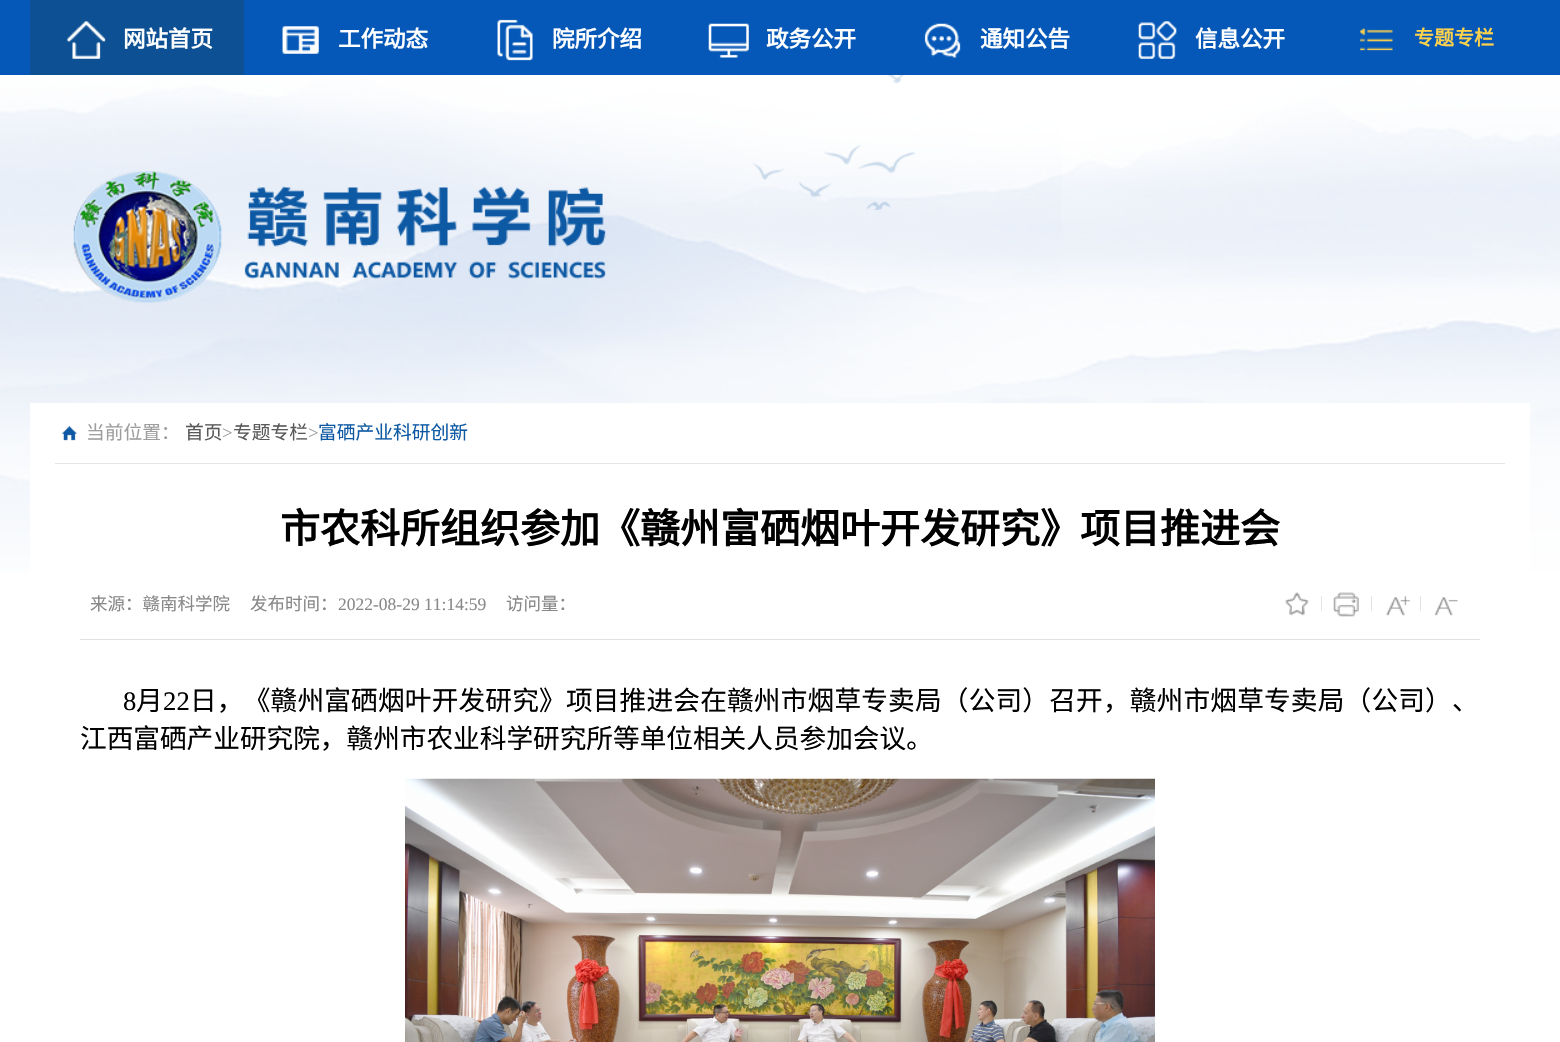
void draw(SkCanvas* canvas) {
    SkPaint paint;
    paint.setAntiAlias(true);
    auto face = [&](const char* family, int weight, float size, bool italic = false) {
        SkFontStyle style(weight, SkFontStyle::kNormal_Width,
            italic ? SkFontStyle::kItalic_Slant : SkFontStyle::kUpright_Slant);
        SkFont result(fontMgr->matchFamilyStyle(family, style), size);
        result.setSubpixel(true);
        return result;
    };
    auto write = [&](const char* s, float x, float y, const SkFont& font, SkColor color) {
        SkPaint ink(SkColor4f::FromColor(color));
        ink.setAntiAlias(true);
        canvas->drawString(s, x, y, font, ink);
    };
    auto writeSpaced = [&](const char* s, float x, float y, const SkFont& font, const SkPaint& ink, float letter, float word) {
        std::vector<SkGlyphID> glyphs(font.countText(s, strlen(s), SkTextEncoding::kUTF8));
        std::vector<float> xs(glyphs.size());
        font.textToGlyphs(s, strlen(s), SkTextEncoding::kUTF8, glyphs);
        font.getXPos(glyphs, xs, x);
        float extra = 0;
        for (size_t i = 0; i < glyphs.size(); i++) {
            xs[i] += extra;
            extra += letter + word * (glyphs[i] == font.unicharToGlyph(' '));
        }
        canvas->drawTextBlob(SkTextBlob::MakeFromPosHGlyphs(glyphs, xs, y, font), 0, 0, ink);
    };
    auto block = [&](float x, float y, float w, float h, SkColor color) {
        SkPaint ink(SkColor4f::FromColor(color));
        ink.setAntiAlias(true);
        canvas->drawRect(SkRect::MakeXYWH(x, y, w, h), ink);
    };
    auto paste = [&](const char* path, float x, float y, float w, float h) {
        auto image = SkImages::DeferredFromEncodedData(SkData::MakeFromFileName(path));
        canvas->drawImageRect(image, SkRect::MakeXYWH(x, y, w, h), SkSamplingOptions());
    };
    canvas->clear(SK_ColorWHITE);
    paste("pic1.png", 0, 75, 1560, 497);
    block(0, 0, 1560, 75, SkColorSetRGB(5, 88, 184));
    block(30, 0, 214, 75, SkColorSetRGB(13, 80, 147));
    paste("pic2.png", 67, 21, 39, 38);
    auto kFont1 = face("Noto Sans CJK SC", 700, 22.5f);
    write("网站首页", 123, 47, kFont1, SK_ColorWHITE);
    paste("pic3.png", 282, 26, 37, 28);
    write("工作动态", 338, 47, kFont1, SK_ColorWHITE);
    paste("pic4.png", 497, 19, 36, 42);
    write("院所介绍", 552, 47, kFont1, SK_ColorWHITE);
    paste("pic5.png", 708, 23, 41, 35);
    write("政务公开", 766, 47, kFont1, SK_ColorWHITE);
    paste("pic6.png", 924, 23, 37, 35);
    write("通知公告", 980, 47, kFont1, SK_ColorWHITE);
    paste("pic7.png", 1138, 21, 39, 38);
    write("信息公开", 1195, 47, kFont1, SK_ColorWHITE);
    paste("pic8.png", 1359, 28, 34, 23);
    auto kFont2 = face("Noto Sans CJK SC", 700, 20);
    write("专题专栏", 1414, 45, kFont2, SkColorSetRGB(255, 210, 76));
    paste("pic9.png", 73, 171, 533, 132);
    block(30, 403, 1500, 169, SK_ColorWHITE);
    block(55, 463, 1450, 1, SkColorSetRGB(229, 229, 229));
    paste("pic10.png", 62, 426, 15, 15);
    auto kFont3 = face("Noto Sans CJK SC", 400, 18.75f);
    write("当前位置：", 86, 439, kFont3, SkColorSetRGB(158, 158, 158));
    write("首页", 185, 439, kFont3, SkColorSetRGB(89, 89, 89));
    auto kFont4 = face("Liberation Serif", 400, 18.75f);
    write(">", 222, 439, kFont4, SkColorSetRGB(158, 158, 158));
    write("专题专栏", 233, 439, kFont3, SkColorSetRGB(89, 89, 89));
    write(">", 308, 439, kFont4, SkColorSetRGB(158, 158, 158));
    write("富硒产业科研创新", 318, 439, kFont3, SkColorSetRGB(14, 89, 164));
    auto kFont5 = face("Noto Sans CJK SC", 700, 40);
    write("市农科所组织参加《赣州富硒烟叶开发研究》项目推进会", 280, 543, kFont5, SK_ColorBLACK);
    block(80, 639, 1400, 1, SkColorSetRGB(225, 225, 225));
    auto kFont6 = face("Noto Sans CJK SC", 400, 17.5f);
    write("来源：赣南科学院", 90, 610, kFont6, SkColorSetRGB(136, 136, 136));
    write("发布时间：", 250, 610, kFont6, SkColorSetRGB(136, 136, 136));
    auto kFont7 = face("Liberation Serif", 400, 17.5f);
    write("2022-08-29 11:14:59", 338, 610, kFont7, SkColorSetRGB(136, 136, 136));
    write("访问量：", 506, 610, kFont6, SkColorSetRGB(136, 136, 136));
    paste("pic11.png", 1285, 592, 24, 24);
    paste("pic12.png", 1333, 592, 26, 25);
    block(1321, 596, 1, 15, SkColorSetRGB(228, 228, 228));
    paste("pic13.png", 1386, 596, 24, 20);
    block(1371, 596, 1, 15, SkColorSetRGB(228, 228, 228));
    paste("pic14.png", 1434, 597, 24, 19);
    block(1420, 596, 1, 15, SkColorSetRGB(228, 228, 228));
    auto kFont8 = face("Liberation Serif", 400, 26.65f);
    paint.setColor(SK_ColorBLACK);
    writeSpaced("8", 123, 710, kFont8, paint, 0.2f, 0);
    auto kFont9 = face("Noto Sans CJK SC", 400, 26.65f);
    writeSpaced("月", 136, 710, kFont9, paint, 0.2f, 0);
    writeSpaced("22", 163, 710, kFont8, paint, 0.2f, 0);
    writeSpaced("日，《赣州富硒烟叶开发研究》项目推进会在赣州市烟草专卖局（公司）召开，赣州市烟草专卖局（公司）、", 190, 710, kFont9, paint, 0.2f, 0);
    write("江西富硒产业研究院，赣州市农业科学研究所等单位相关人员参加会议。", 80, 748, kFont9, SK_ColorBLACK);
    paste("pic15.png", 405, 778, 750, 264);
}
